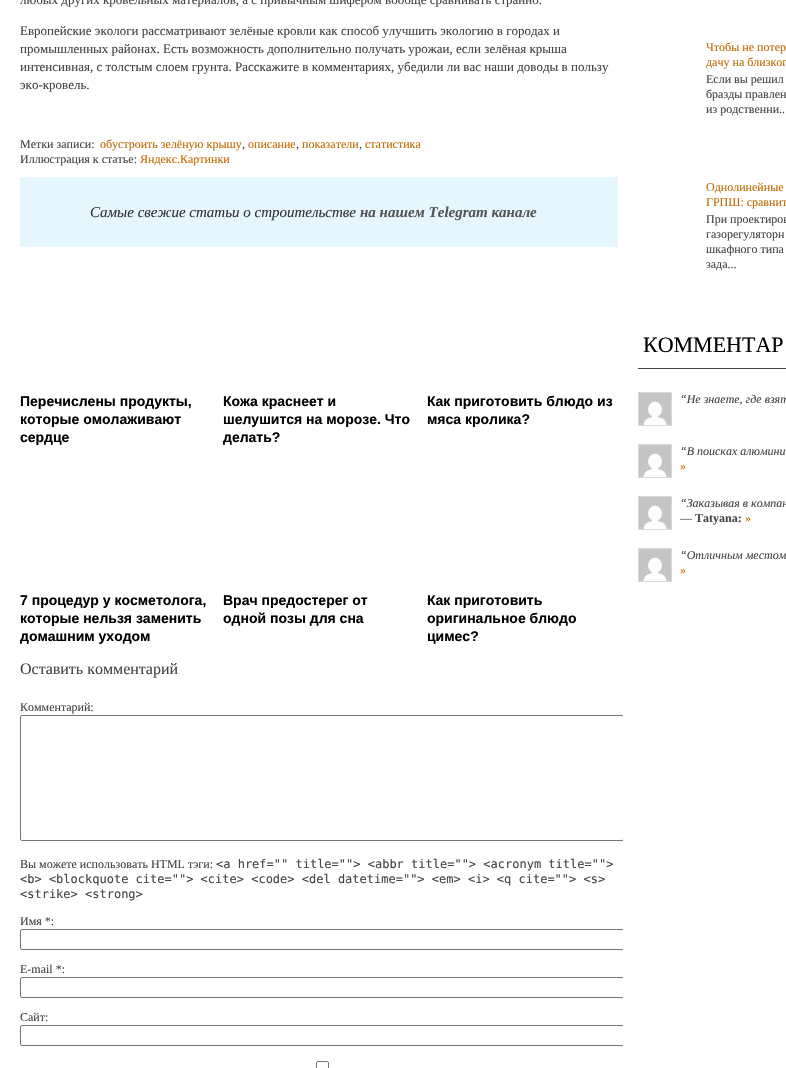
void draw(SkCanvas* canvas) {
    SkPaint paint;
    paint.setAntiAlias(true);
    auto face = [&](const char* family, int weight, float size, bool italic = false) {
        SkFontStyle style(weight, SkFontStyle::kNormal_Width,
            italic ? SkFontStyle::kItalic_Slant : SkFontStyle::kUpright_Slant);
        SkFont result(fontMgr->matchFamilyStyle(family, style), size);
        result.setSubpixel(true);
        return result;
    };
    auto write = [&](const char* s, float x, float y, const SkFont& font, SkColor color) {
        SkPaint ink(SkColor4f::FromColor(color));
        ink.setAntiAlias(true);
        canvas->drawString(s, x, y, font, ink);
    };
    auto block = [&](float x, float y, float w, float h, SkColor color) {
        SkPaint ink(SkColor4f::FromColor(color));
        ink.setAntiAlias(true);
        canvas->drawRect(SkRect::MakeXYWH(x, y, w, h), ink);
    };
    auto paste = [&](const char* path, float x, float y, float w, float h) {
        auto image = SkImages::DeferredFromEncodedData(SkData::MakeFromFileName(path));
        canvas->drawImageRect(image, SkRect::MakeXYWH(x, y, w, h), SkSamplingOptions());
    };
    canvas->clear(SK_ColorWHITE);
    auto kFont1 = face("Liberation Serif", 400, 13);
    write("любых других кровельных материалов, а с привычным шифером вообще сравнивать странно.", 20, 4, kFont1, SkColorSetRGB(67, 67, 67));
    write("Европейские экологи рассматривают зелёные кровли как способ улучшить экологию в городах и", 20, 35, kFont1, SkColorSetRGB(67, 67, 67));
    write("промышленных районах. Есть возможность дополнительно получать урожаи, если зелёная крыша", 20, 53, kFont1, SkColorSetRGB(67, 67, 67));
    write("интенсивная, с толстым слоем грунта. Расскажите в комментариях, убедили ли вас наши доводы в пользу", 20, 71, kFont1, SkColorSetRGB(67, 67, 67));
    write("эко-кровель.", 20, 89, kFont1, SkColorSetRGB(67, 67, 67));
    auto kFont2 = face("Liberation Serif", 400, 12);
    write("Метки записи:", 20, 148, kFont2, SkColorSetRGB(67, 67, 67));
    write("обустроить зелёную крышу", 100, 148, kFont2, SkColorSetRGB(192, 105, 0));
    write(",", 242, 148, kFont2, SkColorSetRGB(67, 67, 67));
    write("описание", 248, 148, kFont2, SkColorSetRGB(192, 105, 0));
    write(",", 296, 148, kFont2, SkColorSetRGB(67, 67, 67));
    write("показатели", 302, 148, kFont2, SkColorSetRGB(192, 105, 0));
    write(",", 359, 148, kFont2, SkColorSetRGB(67, 67, 67));
    write("статистика", 365, 148, kFont2, SkColorSetRGB(192, 105, 0));
    write("Иллюстрация к статье:", 20, 163, kFont2, SkColorSetRGB(67, 67, 67));
    write("Яндекс.Картинки", 140, 163, kFont2, SkColorSetRGB(192, 105, 0));
    block(20, 177, 598, 70, SkColorSetRGB(229, 246, 255));
    auto kFont3 = face("Liberation Serif", 400, 15, true);
    write("Самые свежие статьи о строительстве", 90, 217, kFont3, SkColorSetRGB(51, 51, 51));
    auto kFont4 = face("Liberation Serif", 700, 15, true);
    write("на нашем Telegram канале", 360, 217, kFont4, SkColorSetRGB(85, 85, 85));
    auto kFont5 = face("Liberation Sans", 700, 14);
    write("Перечислены продукты,", 20, 406, kFont5, SK_ColorBLACK);
    write("которые омолаживают", 20, 424, kFont5, SK_ColorBLACK);
    write("сердце", 20, 442, kFont5, SK_ColorBLACK);
    write("Кожа краснеет и", 223, 406, kFont5, SK_ColorBLACK);
    write("шелушится на морозе. Что", 223, 424, kFont5, SK_ColorBLACK);
    write("делать?", 223, 442, kFont5, SK_ColorBLACK);
    write("Как приготовить блюдо из", 427, 406, kFont5, SK_ColorBLACK);
    write("мяса кролика?", 427, 424, kFont5, SK_ColorBLACK);
    write("7 процедур у косметолога,", 20, 605, kFont5, SK_ColorBLACK);
    write("которые нельзя заменить", 20, 623, kFont5, SK_ColorBLACK);
    write("домашним уходом", 20, 641, kFont5, SK_ColorBLACK);
    write("Врач предостерег от", 223, 605, kFont5, SK_ColorBLACK);
    write("одной позы для сна", 223, 623, kFont5, SK_ColorBLACK);
    write("Как приготовить", 427, 605, kFont5, SK_ColorBLACK);
    write("оригинальное блюдо", 427, 623, kFont5, SK_ColorBLACK);
    write("цимес?", 427, 641, kFont5, SK_ColorBLACK);
    auto kFont6 = face("Liberation Serif", 400, 16);
    write("Оставить комментарий", 20, 674, kFont6, SkColorSetRGB(67, 67, 67));
    write("Комментарий:", 20, 711, kFont2, SkColorSetRGB(67, 67, 67));
    canvas->save();
    canvas->clipRect(SkRect::MakeXYWH(0, 0, 623, 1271));
    paint.setStyle(SkPaint::kStroke_Style);
    paint.setStrokeWidth(1);
    paint.setColor(SkColorSetRGB(118, 118, 118));
    canvas->drawRoundRect(SkRect::MakeXYWH(20.5f, 715.5f, 603, 125), 1.5f, 1.5f, paint);
    canvas->restore();
    write("Вы можете использовать HTML тэги:", 20, 868, kFont2, SkColorSetRGB(67, 67, 67));
    auto kFont7 = face("DejaVu Sans Mono", 400, 12);
    write("<a href=\"\" title=\"\"> <abbr title=\"\"> <acronym title=\"\">", 216, 868, kFont7, SkColorSetRGB(67, 67, 67));
    write("<b> <blockquote cite=\"\"> <cite> <code> <del datetime=\"\"> <em> <i> <q cite=\"\"> <s>", 20, 883, kFont7, SkColorSetRGB(67, 67, 67));
    write("<strike> <strong>", 20, 898, kFont7, SkColorSetRGB(67, 67, 67));
    write("Имя *:", 20, 925, kFont2, SkColorSetRGB(67, 67, 67));
    canvas->save();
    canvas->clipRect(SkRect::MakeXYWH(0, 0, 623, 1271));
    canvas->drawRoundRect(SkRect::MakeXYWH(20.5f, 929.5f, 605, 20), 1.5f, 1.5f, paint);
    canvas->restore();
    write("E-mail *:", 20, 973, kFont2, SkColorSetRGB(67, 67, 67));
    canvas->save();
    canvas->clipRect(SkRect::MakeXYWH(0, 0, 623, 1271));
    canvas->drawRoundRect(SkRect::MakeXYWH(20.5f, 977.5f, 605, 20), 1.5f, 1.5f, paint);
    canvas->restore();
    write("Сайт:", 20, 1021, kFont2, SkColorSetRGB(67, 67, 67));
    canvas->save();
    canvas->clipRect(SkRect::MakeXYWH(0, 0, 623, 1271));
    canvas->drawRoundRect(SkRect::MakeXYWH(20.5f, 1025.5f, 605, 20), 1.5f, 1.5f, paint);
    canvas->restore();
    canvas->drawRoundRect(SkRect::MakeXYWH(316.5f, 1061.5f, 12, 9), 1.5f, 1.5f, paint);
    write("Чтобы не потер", 706, 51, kFont2, SkColorSetRGB(192, 105, 0));
    write("дачу на близког", 706, 66, kFont2, SkColorSetRGB(192, 105, 0));
    write("Если вы решил", 706, 83, kFont2, SkColorSetRGB(67, 67, 67));
    write("бразды правлен", 706, 98, kFont2, SkColorSetRGB(67, 67, 67));
    write("из родственни..", 706, 113, kFont2, SkColorSetRGB(67, 67, 67));
    write("Однолинейные", 706, 191, kFont2, SkColorSetRGB(192, 105, 0));
    write("ГРПШ: сравнит", 706, 206, kFont2, SkColorSetRGB(192, 105, 0));
    write("При проектиров", 706, 223, kFont2, SkColorSetRGB(67, 67, 67));
    write("газорегуляторн", 706, 238, kFont2, SkColorSetRGB(67, 67, 67));
    write("шкафного типа", 706, 253, kFont2, SkColorSetRGB(67, 67, 67));
    write("зада...", 706, 268, kFont2, SkColorSetRGB(67, 67, 67));
    block(638, 368, 148, 1, SkColorSetRGB(67, 67, 67));
    auto kFont8 = face("Liberation Serif", 400, 22);
    write("КОММЕНТАР", 643, 352, kFont8, SK_ColorBLACK);
    paint.setColor(SkColorSetRGB(217, 217, 217));
    canvas->drawRect(SkRect::MakeXYWH(638.5f, 392.5f, 33, 33), paint);
    paste("pic1.png", 639, 393, 32, 32);
    auto kFont9 = face("Liberation Serif", 400, 12, true);
    write("“Не знаете, где взят", 680, 403, kFont9, SkColorSetRGB(67, 67, 67));
    canvas->drawRect(SkRect::MakeXYWH(638.5f, 444.5f, 33, 33), paint);
    paste("pic1.png", 639, 445, 32, 32);
    write("“В поисках алюмини", 680, 455, kFont9, SkColorSetRGB(67, 67, 67));
    write("»", 680, 470, kFont2, SkColorSetRGB(192, 105, 0));
    canvas->drawRect(SkRect::MakeXYWH(638.5f, 496.5f, 33, 33), paint);
    paste("pic1.png", 639, 497, 32, 32);
    write("“Заказывая в компан", 680, 507, kFont9, SkColorSetRGB(67, 67, 67));
    write("—", 680, 522, kFont2, SkColorSetRGB(67, 67, 67));
    auto kFont10 = face("Liberation Serif", 700, 12);
    write("Tatyana:", 695, 522, kFont10, SkColorSetRGB(67, 67, 67));
    write("»", 745, 522, kFont2, SkColorSetRGB(192, 105, 0));
    canvas->drawRect(SkRect::MakeXYWH(638.5f, 548.5f, 33, 33), paint);
    paste("pic1.png", 639, 549, 32, 32);
    write("“Отличным местом", 680, 559, kFont9, SkColorSetRGB(67, 67, 67));
    write("»", 680, 574, kFont2, SkColorSetRGB(192, 105, 0));
}
